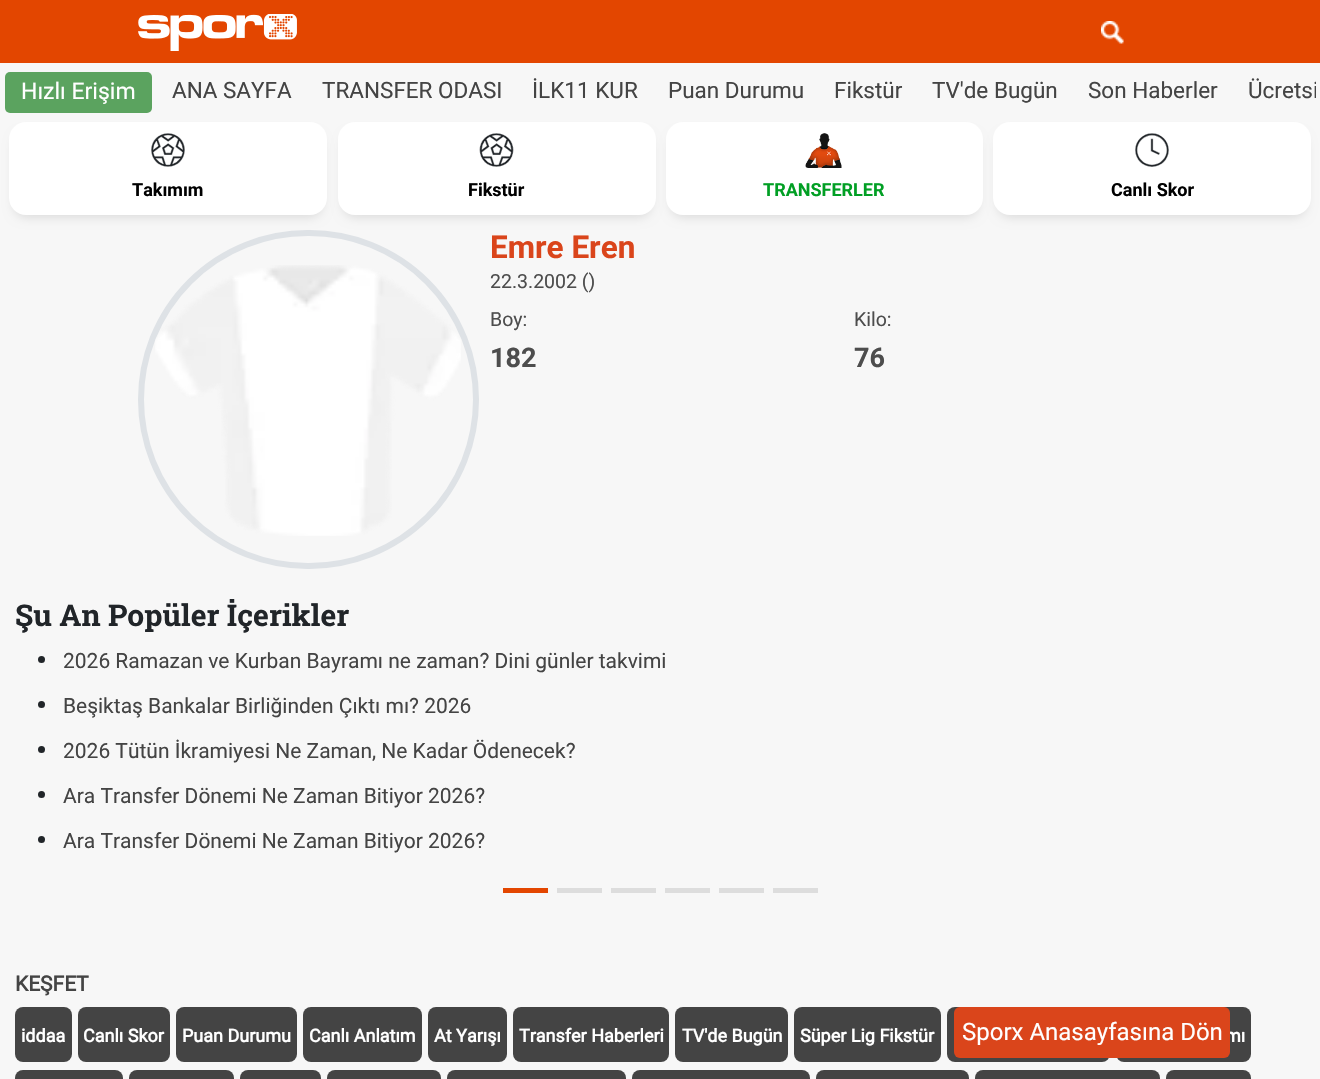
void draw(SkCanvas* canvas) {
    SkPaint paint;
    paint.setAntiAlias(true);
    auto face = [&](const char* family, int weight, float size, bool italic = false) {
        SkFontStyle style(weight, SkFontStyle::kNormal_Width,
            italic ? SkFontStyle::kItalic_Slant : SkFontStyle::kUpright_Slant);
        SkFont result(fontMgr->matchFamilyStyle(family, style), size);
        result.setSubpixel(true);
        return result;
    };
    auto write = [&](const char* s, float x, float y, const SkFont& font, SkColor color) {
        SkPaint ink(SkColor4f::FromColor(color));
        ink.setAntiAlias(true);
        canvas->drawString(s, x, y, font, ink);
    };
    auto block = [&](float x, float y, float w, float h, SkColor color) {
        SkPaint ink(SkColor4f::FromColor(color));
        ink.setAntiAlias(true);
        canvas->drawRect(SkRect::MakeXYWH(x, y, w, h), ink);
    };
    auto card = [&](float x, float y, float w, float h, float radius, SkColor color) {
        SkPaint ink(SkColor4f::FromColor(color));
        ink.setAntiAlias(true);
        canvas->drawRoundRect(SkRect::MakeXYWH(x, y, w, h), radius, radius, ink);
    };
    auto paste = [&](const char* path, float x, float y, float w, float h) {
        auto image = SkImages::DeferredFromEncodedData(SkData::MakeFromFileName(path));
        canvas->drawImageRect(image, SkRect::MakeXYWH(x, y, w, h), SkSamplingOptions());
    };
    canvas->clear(SkColorSetRGB(247, 247, 247));
    block(0, 0, 1320, 63, SkColorSetRGB(227, 70, 0));
    paste("pic1.png", 138, 14, 159, 37);
    paste("pic2.png", 1101, 21, 23, 23);
    card(5, 72, 147, 41, 5, SkColorSetRGB(91, 163, 95));
    auto kFont1 = face("Roboto", 400, 23);
    write("Hızlı Erişim", 21, 99, kFont1, SK_ColorWHITE);
    auto kFont2 = face("Roboto", 400, 22.5f);
    write("ANA SAYFA", 172, 98, kFont2, SkColorSetRGB(68, 68, 68));
    write("TRANSFER ODASI", 322, 98, kFont2, SkColorSetRGB(68, 68, 68));
    write("İLK11 KUR", 532, 98, kFont2, SkColorSetRGB(68, 68, 68));
    write("Puan Durumu", 668, 98, kFont2, SkColorSetRGB(68, 68, 68));
    write("Fikstür", 834, 98, kFont2, SkColorSetRGB(68, 68, 68));
    write("TV'de Bugün", 932, 98, kFont2, SkColorSetRGB(68, 68, 68));
    write("Son Haberler", 1088, 98, kFont2, SkColorSetRGB(68, 68, 68));
    canvas->save();
    canvas->clipRect(SkRect::MakeXYWH(162, 75, 1154, 35));
    write("Ücretsi", 1248, 98, kFont2, SkColorSetRGB(68, 68, 68));
    canvas->restore();
    paint.setColor(SkColorSetARGB(36, 0, 0, 0));
    paint.setMaskFilter(SkMaskFilter::MakeBlur(kNormal_SkBlurStyle, 6));
    canvas->drawRoundRect(SkRect::MakeXYWH(15, 135, 306, 81), 11, 11, paint);
    paint.setMaskFilter(nullptr);
    card(9, 122, 318, 93, 17, SK_ColorWHITE);
    paste("pic3.png", 151, 133, 34, 34);
    auto kFont3 = face("Roboto", 700, 18);
    write("Takımım", 132, 196, kFont3, SK_ColorBLACK);
    paint.setMaskFilter(SkMaskFilter::MakeBlur(kNormal_SkBlurStyle, 6));
    canvas->drawRoundRect(SkRect::MakeXYWH(344, 135, 306, 81), 11, 11, paint);
    paint.setMaskFilter(nullptr);
    card(338, 122, 318, 93, 17, SK_ColorWHITE);
    paste("pic4.png", 479, 133, 35, 34);
    write("Fikstür", 468, 196, kFont3, SK_ColorBLACK);
    paint.setMaskFilter(SkMaskFilter::MakeBlur(kNormal_SkBlurStyle, 6));
    canvas->drawRoundRect(SkRect::MakeXYWH(672, 135, 305, 81), 11, 11, paint);
    paint.setMaskFilter(nullptr);
    card(666, 122, 317, 93, 17, SK_ColorWHITE);
    paste("pic5.png", 805, 133, 37, 35);
    write("TRANSFERLER", 763, 196, kFont3, SkColorSetRGB(1, 159, 36));
    paint.setMaskFilter(SkMaskFilter::MakeBlur(kNormal_SkBlurStyle, 6));
    canvas->drawRoundRect(SkRect::MakeXYWH(999, 135, 306, 81), 11, 11, paint);
    paint.setMaskFilter(nullptr);
    card(993, 122, 318, 93, 17, SK_ColorWHITE);
    paste("pic6.png", 1135, 133, 34, 34);
    write("Canlı Skor", 1111, 196, kFont3, SK_ColorBLACK);
    paint.setStyle(SkPaint::kStroke_Style);
    paint.setStrokeWidth(6);
    paint.setColor(SkColorSetRGB(222, 226, 230));
    canvas->drawRoundRect(SkRect::MakeXYWH(141, 233, 335, 333), 166.5f, 166.5f, paint);
    paste("pic7.png", 155, 265, 306, 271);
    auto kFont4 = face("Roboto", 700, 31.5f);
    write("Emre Eren", 490, 258, kFont4, SkColorSetRGB(218, 69, 27));
    auto kFont5 = face("Roboto", 400, 19.5f);
    write("22.3.2002 ()", 490, 288, kFont5, SkColorSetRGB(77, 77, 77));
    write("Boy:", 490, 326, kFont5, SkColorSetRGB(77, 77, 77));
    auto kFont6 = face("Roboto", 700, 27);
    write("182", 490, 367, kFont6, SkColorSetRGB(77, 77, 77));
    write("Kilo:", 854, 326, kFont5, SkColorSetRGB(77, 77, 77));
    write("76", 854, 367, kFont6, SkColorSetRGB(77, 77, 77));
    auto kFont7 = face("Roboto Slab", 700, 30);
    write("Şu An Popüler İçerikler", 15, 626, kFont7, SkColorSetRGB(33, 37, 41));
    paint.setStyle(SkPaint::kFill_Style);
    paint.setColor(SkColorSetRGB(33, 37, 41));
    canvas->drawCircle(41.5f, 659.5f, 3.5f, paint);
    auto kFont8 = face("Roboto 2", 400, 21);
    write("2026 Ramazan ve Kurban Bayramı ne zaman? Dini günler takvimi", 63, 668, kFont8, SkColorSetRGB(68, 68, 68));
    canvas->drawCircle(41.5f, 704.5f, 3.5f, paint);
    write("Beşiktaş Bankalar Birliğinden Çıktı mı? 2026", 63, 713, kFont8, SkColorSetRGB(68, 68, 68));
    canvas->drawCircle(41.5f, 749.5f, 3.5f, paint);
    write("2026 Tütün İkramiyesi Ne Zaman, Ne Kadar Ödenecek?", 63, 758, kFont8, SkColorSetRGB(68, 68, 68));
    canvas->drawCircle(41.5f, 794.5f, 3.5f, paint);
    write("Ara Transfer Dönemi Ne Zaman Bitiyor 2026?", 63, 803, kFont8, SkColorSetRGB(68, 68, 68));
    canvas->drawCircle(41.5f, 839.5f, 3.5f, paint);
    write("Ara Transfer Dönemi Ne Zaman Bitiyor 2026?", 63, 848, kFont8, SkColorSetRGB(68, 68, 68));
    block(503, 888, 45, 5, SkColorSetRGB(227, 70, 0));
    block(557, 888, 45, 5, SkColorSetRGB(221, 221, 221));
    block(611, 888, 45, 5, SkColorSetRGB(221, 221, 221));
    block(665, 888, 45, 5, SkColorSetRGB(221, 221, 221));
    block(719, 888, 45, 5, SkColorSetRGB(221, 221, 221));
    block(773, 888, 45, 5, SkColorSetRGB(221, 221, 221));
    auto kFont9 = face("Roboto 2", 700, 21);
    write("KEŞFET", 15, 991, kFont9, SkColorSetRGB(68, 68, 68));
    card(15, 1007, 57, 55, 8, SkColorSetRGB(68, 68, 68));
    auto kFont10 = face("Roboto 2", 700, 18);
    write("iddaa", 21, 1042, kFont10, SK_ColorWHITE);
    card(78, 1007, 92, 55, 8, SkColorSetRGB(68, 68, 68));
    write("Canlı Skor", 83, 1042, kFont10, SK_ColorWHITE);
    card(176, 1007, 121, 55, 8, SkColorSetRGB(68, 68, 68));
    write("Puan Durumu", 182, 1042, kFont10, SK_ColorWHITE);
    card(303, 1007, 119, 55, 8, SkColorSetRGB(68, 68, 68));
    write("Canlı Anlatım", 309, 1042, kFont10, SK_ColorWHITE);
    card(428, 1007, 79, 55, 8, SkColorSetRGB(68, 68, 68));
    write("At Yarışı", 434, 1042, kFont10, SK_ColorWHITE);
    card(513, 1007, 156, 55, 8, SkColorSetRGB(68, 68, 68));
    write("Transfer Haberleri", 519, 1042, kFont10, SK_ColorWHITE);
    card(675, 1007, 113, 55, 8, SkColorSetRGB(68, 68, 68));
    write("TV'de Bugün", 682, 1042, kFont10, SK_ColorWHITE);
    card(794, 1007, 147, 55, 8, SkColorSetRGB(68, 68, 68));
    write("Süper Lig Fikstür", 800, 1042, kFont10, SK_ColorWHITE);
    card(947, 1007, 163, 55, 8, SkColorSetRGB(68, 68, 68));
    card(1116, 1007, 135, 55, 8, SkColorSetRGB(68, 68, 68));
    write("mı", 1225, 1042, kFont10, SK_ColorWHITE);
    card(15, 1070, 108, 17, 8, SkColorSetRGB(68, 68, 68));
    card(129, 1070, 105, 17, 8, SkColorSetRGB(68, 68, 68));
    card(240, 1070, 81, 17, 8, SkColorSetRGB(68, 68, 68));
    card(327, 1070, 114, 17, 8, SkColorSetRGB(68, 68, 68));
    card(447, 1070, 179, 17, 8, SkColorSetRGB(68, 68, 68));
    card(632, 1070, 178, 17, 8, SkColorSetRGB(68, 68, 68));
    card(816, 1070, 153, 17, 8, SkColorSetRGB(68, 68, 68));
    card(975, 1070, 185, 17, 8, SkColorSetRGB(68, 68, 68));
    card(1166, 1070, 85, 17, 8, SkColorSetRGB(68, 68, 68));
    card(954, 1007, 276, 51, 6, SkColorSetRGB(218, 69, 27));
    auto kFont11 = face("Roboto", 400, 24);
    write("Sporx Anasayfasına Dön", 962, 1040, kFont11, SK_ColorWHITE);
}
